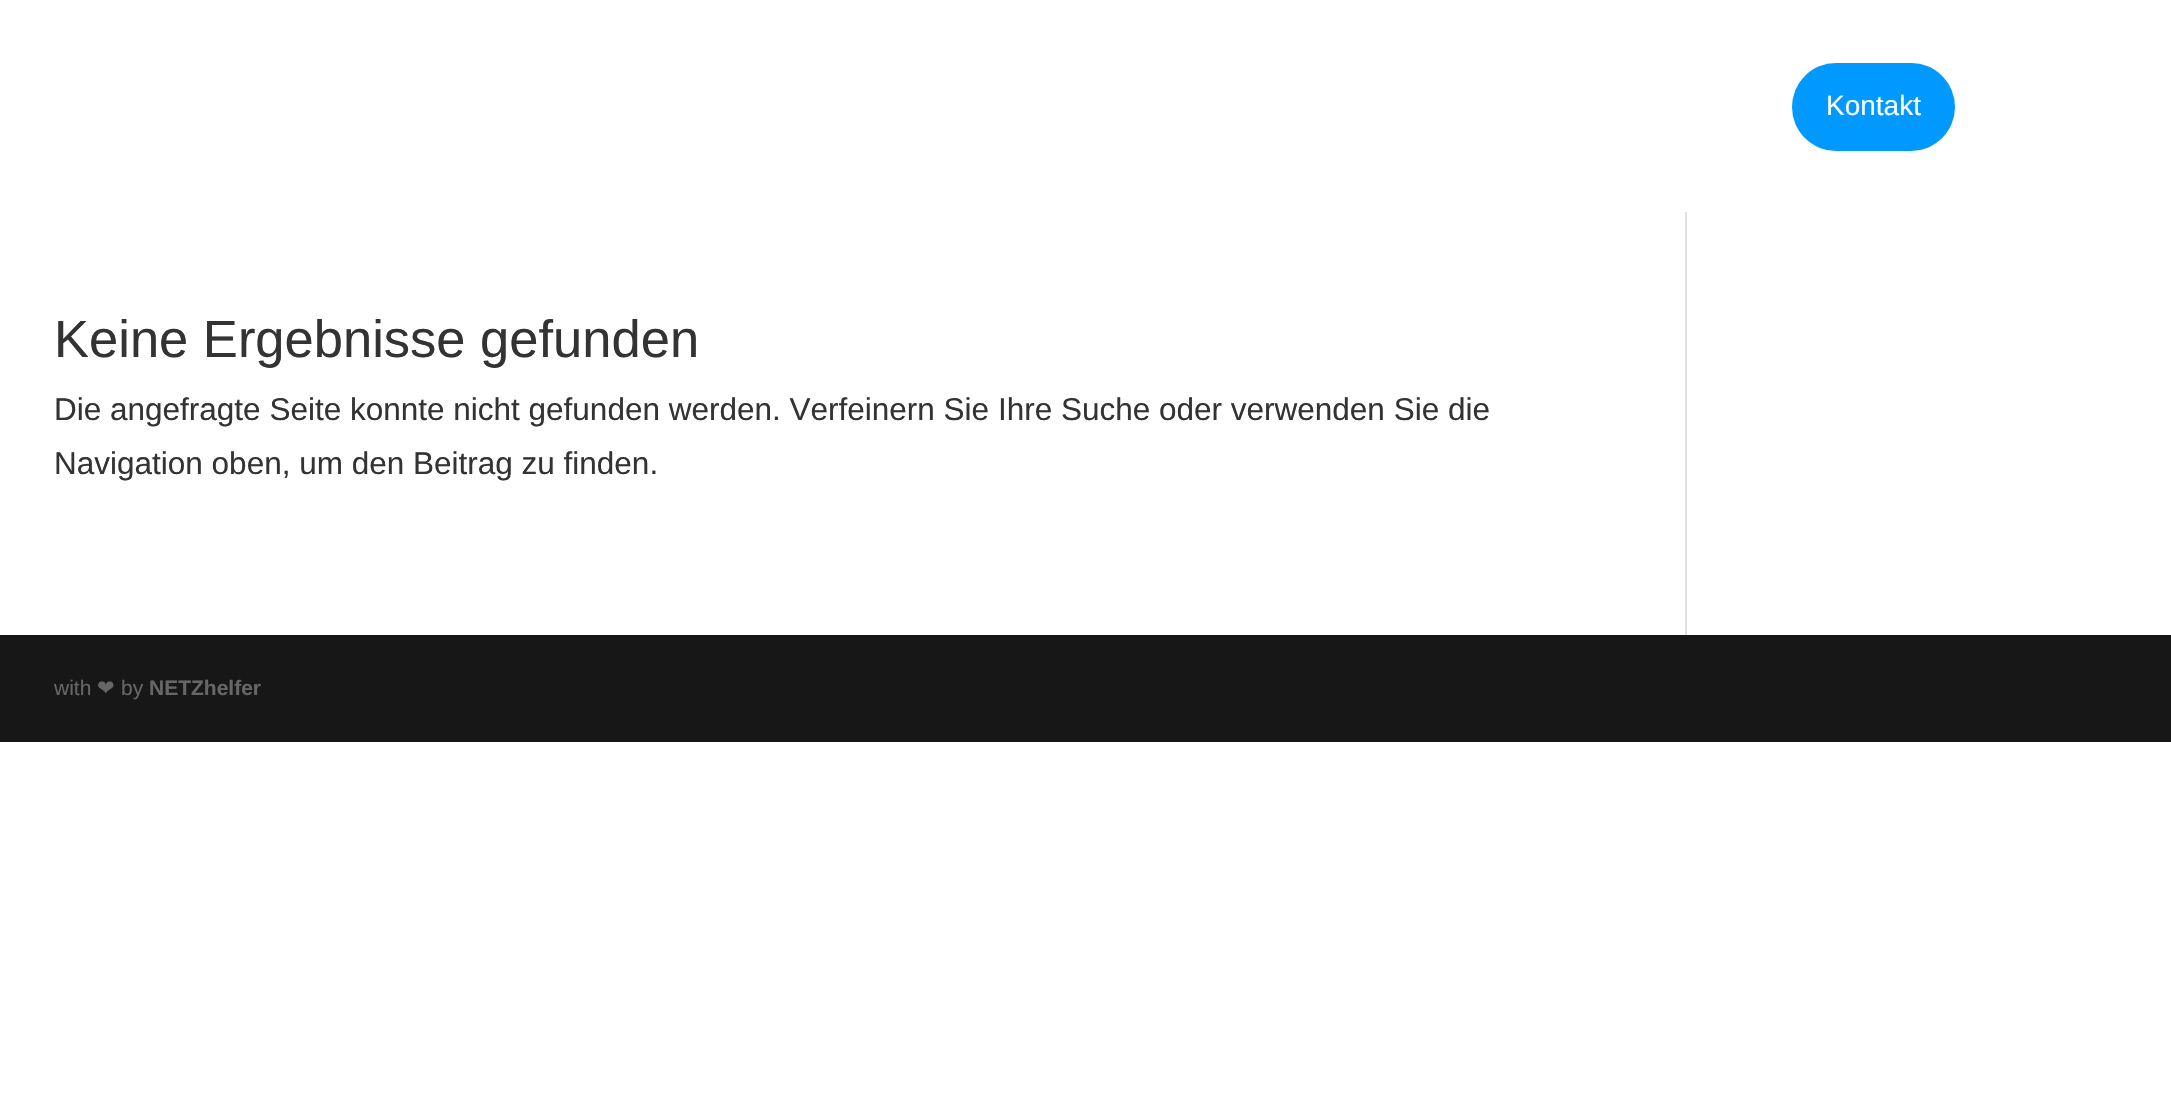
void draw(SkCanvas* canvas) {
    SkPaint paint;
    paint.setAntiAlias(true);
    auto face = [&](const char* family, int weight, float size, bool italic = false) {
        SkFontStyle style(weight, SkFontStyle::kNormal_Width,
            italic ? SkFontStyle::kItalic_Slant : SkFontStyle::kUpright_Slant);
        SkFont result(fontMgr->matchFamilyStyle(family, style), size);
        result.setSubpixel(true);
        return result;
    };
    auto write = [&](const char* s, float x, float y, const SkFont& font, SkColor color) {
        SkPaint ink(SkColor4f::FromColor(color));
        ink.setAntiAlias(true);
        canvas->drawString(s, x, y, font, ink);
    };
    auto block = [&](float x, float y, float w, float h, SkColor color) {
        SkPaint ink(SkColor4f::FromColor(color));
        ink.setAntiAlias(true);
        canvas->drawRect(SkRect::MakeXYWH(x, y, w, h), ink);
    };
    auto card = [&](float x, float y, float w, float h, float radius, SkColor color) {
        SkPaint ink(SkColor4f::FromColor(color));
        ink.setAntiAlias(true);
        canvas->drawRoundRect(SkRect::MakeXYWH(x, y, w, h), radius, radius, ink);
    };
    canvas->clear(SK_ColorWHITE);
    card(1792, 63, 163, 88, 44, SkColorSetRGB(0, 153, 255));
    auto kFont1 = face("Liberation Sans", 400, 28);
    write("Kontakt", 1826, 115, kFont1, SK_ColorWHITE);
    auto kFont2 = face("Liberation Sans", 400, 52.5f);
    write("Keine Ergebnisse gefunden", 54, 357, kFont2, SkColorSetRGB(51, 51, 51));
    auto kFont3 = face("Liberation Sans", 400, 31.5f);
    write("Die angefragte Seite konnte nicht gefunden werden. Verfeinern Sie Ihre Suche oder verwenden Sie die", 54, 420, kFont3, SkColorSetRGB(51, 51, 51));
    write("Navigation oben, um den Beitrag zu finden.", 54, 474, kFont3, SkColorSetRGB(51, 51, 51));
    block(1685, 212, 2, 423, SkColorSetRGB(226, 226, 226));
    block(0, 635, 2171, 107, SkColorSetRGB(23, 23, 23));
    auto kFont4 = face("Liberation Sans", 400, 21);
    write("with", 54, 695, kFont4, SkColorSetRGB(102, 102, 102));
    auto kFont5 = face("DejaVu Sans", 400, 21);
    write("❤", 97, 695, kFont5, SkColorSetRGB(102, 102, 102));
    write("by", 121, 695, kFont4, SkColorSetRGB(102, 102, 102));
    auto kFont6 = face("Liberation Sans", 700, 21);
    write("NETZhelfer", 149, 695, kFont6, SkColorSetRGB(102, 102, 102));
}
